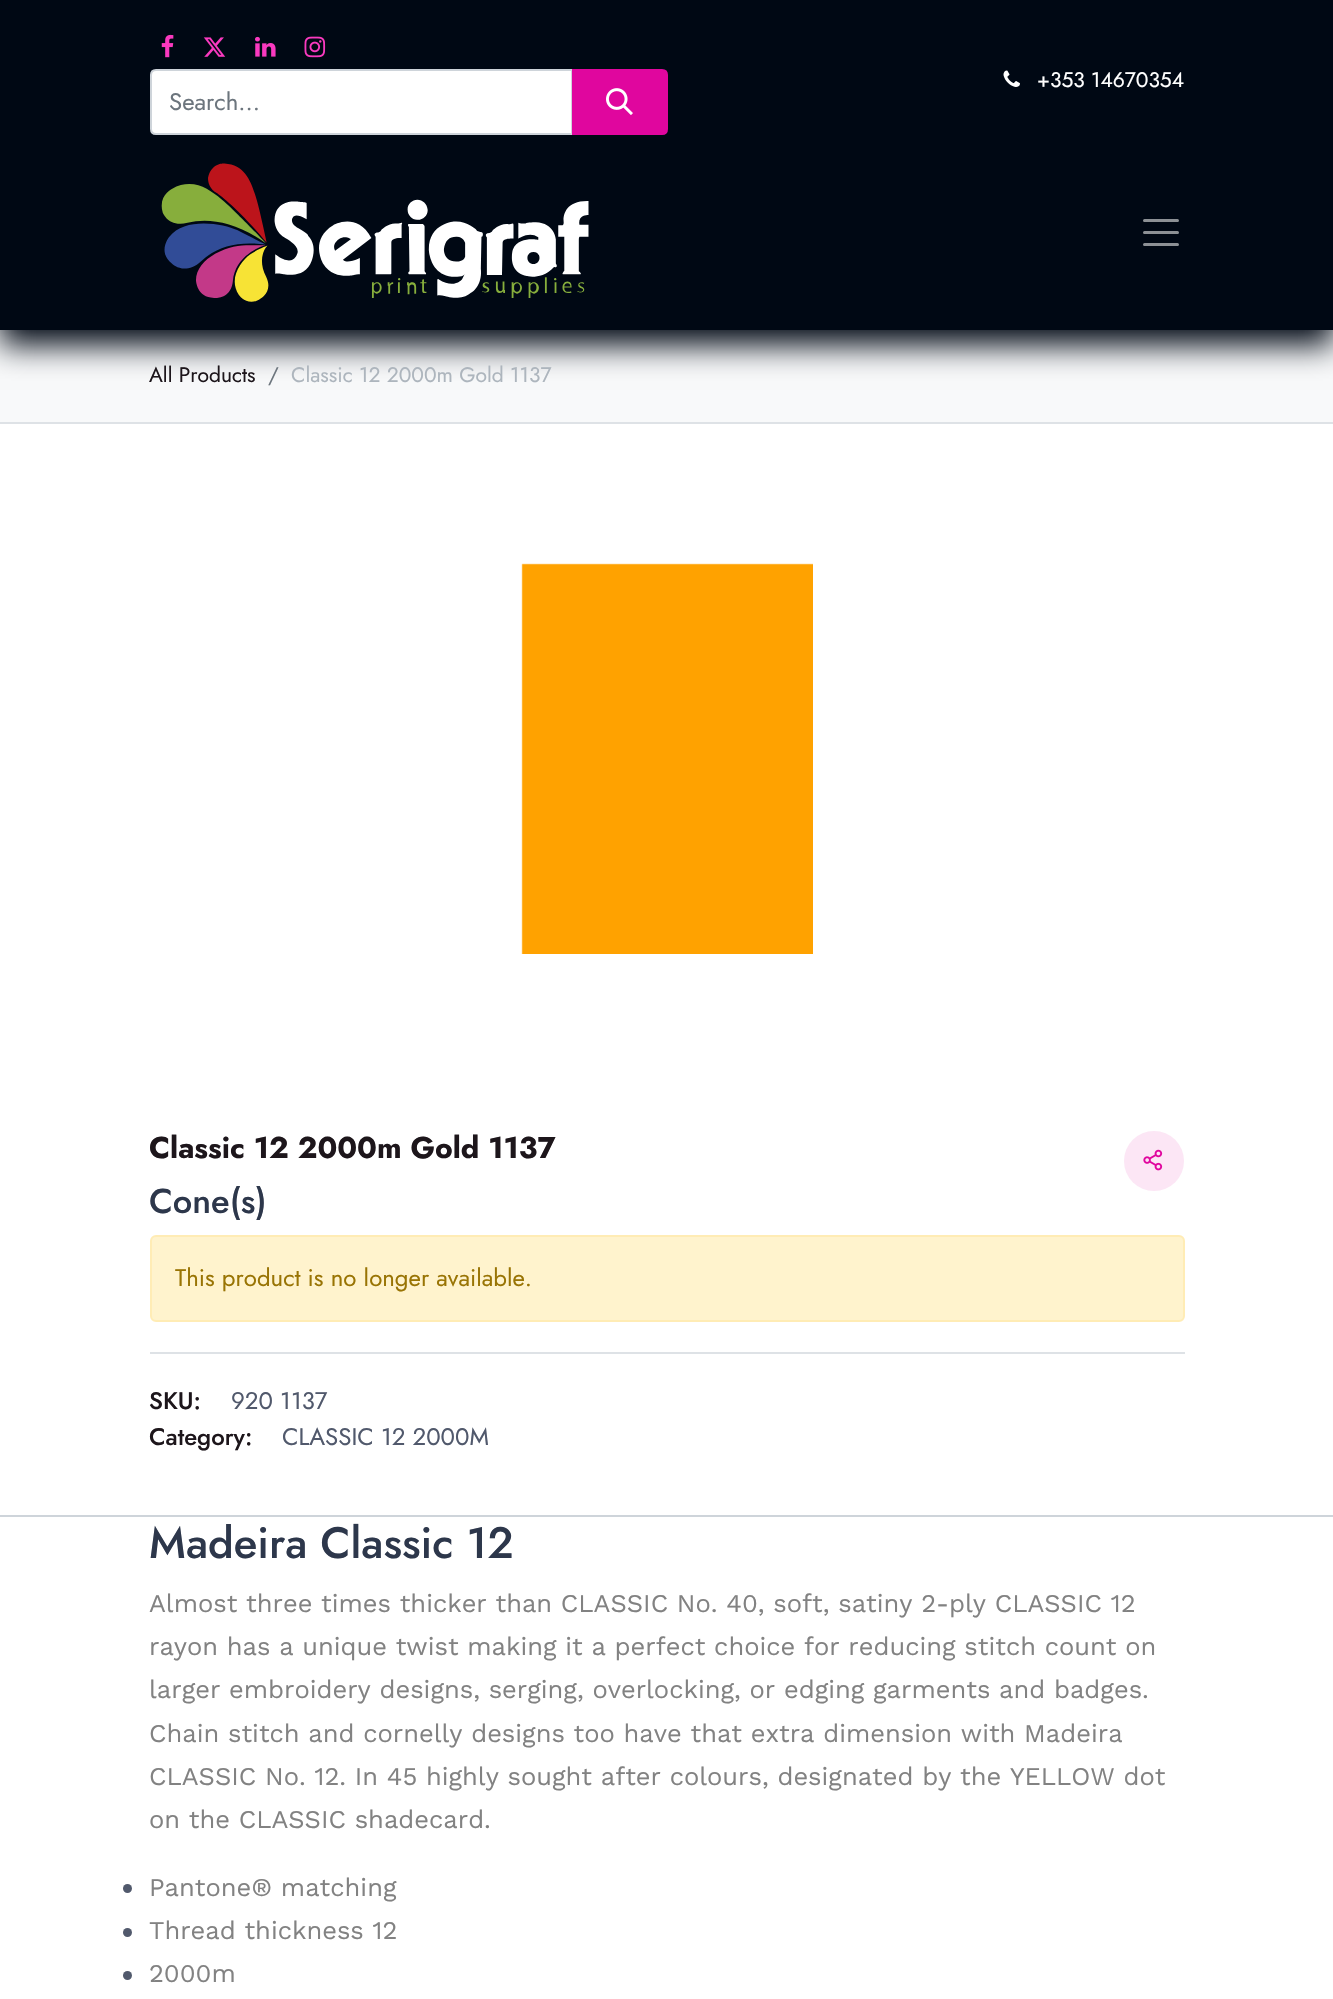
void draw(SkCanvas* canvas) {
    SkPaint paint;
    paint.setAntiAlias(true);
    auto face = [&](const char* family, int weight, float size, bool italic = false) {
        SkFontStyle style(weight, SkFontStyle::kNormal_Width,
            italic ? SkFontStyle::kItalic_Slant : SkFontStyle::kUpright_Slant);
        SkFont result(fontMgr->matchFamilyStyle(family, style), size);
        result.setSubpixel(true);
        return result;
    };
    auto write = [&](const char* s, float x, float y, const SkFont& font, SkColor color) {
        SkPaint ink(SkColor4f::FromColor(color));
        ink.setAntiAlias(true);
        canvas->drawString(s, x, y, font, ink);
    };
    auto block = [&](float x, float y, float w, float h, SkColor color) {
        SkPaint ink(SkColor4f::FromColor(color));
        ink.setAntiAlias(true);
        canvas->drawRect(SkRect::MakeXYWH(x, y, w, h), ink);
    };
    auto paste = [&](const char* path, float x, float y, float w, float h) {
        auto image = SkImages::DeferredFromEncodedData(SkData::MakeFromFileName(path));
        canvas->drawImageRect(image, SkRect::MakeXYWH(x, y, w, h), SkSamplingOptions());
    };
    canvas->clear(SK_ColorWHITE);
    block(0, 330, 1333, 92, SkColorSetRGB(248, 249, 250));
    paint.setColor(SkColorSetRGB(0, 8, 20));
    paint.setMaskFilter(SkMaskFilter::MakeBlur(kNormal_SkBlurStyle, 15));
    canvas->drawRect(SkRect::MakeXYWH(0, 15, 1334, 330), paint);
    paint.setMaskFilter(nullptr);
    block(0, 0, 1333, 330, SkColorSetRGB(0, 8, 20));
    paste("pic1.png", 1003, 70, 17, 17);
    auto kFont1 = face("Jost", 400, 21);
    write("+353 14670354", 1037, 87, kFont1, SK_ColorWHITE);
    paste("pic2.png", 161, 34, 13, 24);
    paste("pic3.png", 203, 37, 23, 20);
    paste("pic4.png", 255, 36, 21, 21);
    paste("pic5.png", 304, 36, 22, 22);
    paint.setColor(SK_ColorWHITE);
    canvas->drawPath(SkPathBuilder().moveTo(156, 70).lineTo(572, 70).lineTo(572, 134).lineTo(156, 134).cubicTo(153, 134, 151, 132, 151, 129).lineTo(151, 75).cubicTo(151, 72, 153, 70, 156, 70).close().detach(), paint);
    paint.setStyle(SkPaint::kStroke_Style);
    paint.setStrokeWidth(2);
    paint.setColor(SkColorSetRGB(206, 212, 218));
    canvas->drawPath(SkPathBuilder().moveTo(156, 70).lineTo(572, 70).lineTo(572, 134).lineTo(156, 134).cubicTo(153, 134, 151, 132, 151, 129).lineTo(151, 75).cubicTo(151, 72, 153, 70, 156, 70).close().detach(), paint);
    auto kFont2 = face("Jost", 400, 24);
    write("Search...", 169, 110, kFont2, SkColorSetRGB(108, 117, 125));
    paint.setStyle(SkPaint::kFill_Style);
    paint.setColor(SkColorSetRGB(224, 6, 158));
    canvas->drawPath(SkPathBuilder().moveTo(573, 70).lineTo(662, 70).cubicTo(665, 70, 667, 72, 667, 75).lineTo(667, 129).cubicTo(667, 132, 665, 134, 662, 134).lineTo(573, 134).close().detach(), paint);
    paint.setStyle(SkPaint::kStroke_Style);
    canvas->drawPath(SkPathBuilder().moveTo(573, 70).lineTo(662, 70).cubicTo(665, 70, 667, 72, 667, 75).lineTo(667, 129).cubicTo(667, 132, 665, 134, 662, 134).lineTo(573, 134).close().detach(), paint);
    paste("pic6.png", 606, 88, 27, 27);
    paste("pic7.png", 161, 163, 428, 139);
    paint.setStrokeWidth(3);
    paint.setStrokeCap(SkPaint::kRound_Cap);
    paint.setColor(SkColorSetRGB(140, 144, 149));
    canvas->drawPath(SkPathBuilder().moveTo(1144.5f, 220.5f).lineTo(1177.5f, 220.5f).moveTo(1144.5f, 232.5f).lineTo(1177.5f, 232.5f).moveTo(1144.5f, 244.5f).lineTo(1177.5f, 244.5f).detach(), paint);
    block(0, 422, 1333, 2, SkColorSetRGB(222, 226, 230));
    write("All Products", 149, 382, kFont1, SkColorSetRGB(29, 22, 27));
    write("/", 268, 382, kFont1, SkColorSetRGB(108, 117, 125));
    write("Classic 12 2000m Gold 1137", 291, 382, kFont1, SkColorSetRGB(173, 181, 189));
    paste("pic8.png", 521, 563, 292, 391);
    auto kFont3 = face("Jost", 700, 30);
    write("Classic 12 2000m Gold 1137", 149, 1158, kFont3, SkColorSetRGB(29, 22, 27));
    paint.setStyle(SkPaint::kFill_Style);
    paint.setColor(SkColorSetRGB(252, 230, 245));
    canvas->drawCircle(1154, 1161, 30, paint);
    paste("pic9.png", 1143, 1149, 20, 22);
    auto kFont4 = face("Jost", 500, 34.5f);
    write("Cone(s)", 149, 1213, kFont4, SkColorSetRGB(45, 55, 75));
    paint.setColor(SkColorSetRGB(255, 243, 205));
    canvas->drawRoundRect(SkRect::MakeXYWH(151, 1236, 1033, 85), 5, 5, paint);
    paint.setStyle(SkPaint::kStroke_Style);
    paint.setStrokeWidth(2);
    paint.setStrokeCap(SkPaint::kButt_Cap);
    paint.setColor(SkColorSetRGB(255, 236, 181));
    canvas->drawRoundRect(SkRect::MakeXYWH(151, 1236, 1033, 85), 5, 5, paint);
    write("This product is no longer available.", 175, 1286, kFont2, SkColorSetRGB(153, 116, 4));
    block(150, 1352, 1035, 2, SkColorSetRGB(222, 226, 230));
    auto kFont5 = face("Jost", 500, 24);
    write("SKU:", 149, 1409, kFont5, SkColorSetRGB(29, 22, 27));
    write("920 1137", 231, 1409, kFont2, SkColorSetRGB(81, 89, 108));
    write("Category:", 149, 1445, kFont5, SkColorSetRGB(29, 22, 27));
    write("CLASSIC 12 2000M", 282, 1445, kFont2, SkColorSetRGB(81, 89, 108));
    block(0, 1515, 1333, 2, SkColorSetRGB(206, 212, 218));
    auto kFont6 = face("Jost", 500, 43.75f);
    write("Madeira Classic 12", 149, 1558, kFont6, SkColorSetRGB(45, 55, 75));
    auto kFont7 = face("Work Sans", 400, 25.5f);
    write("Almost three times thicker than CLASSIC No. 40, soft, satiny 2-ply CLASSIC 12", 149, 1612, kFont7, SkColorSetRGB(130, 130, 130));
    write("rayon has a unique twist making it a perfect choice for reducing stitch count on", 149, 1655, kFont7, SkColorSetRGB(130, 130, 130));
    write("larger embroidery designs, serging, overlocking, or edging garments and badges.", 149, 1698, kFont7, SkColorSetRGB(130, 130, 130));
    write("Chain stitch and cornelly designs too have that extra dimension with Madeira", 149, 1742, kFont7, SkColorSetRGB(130, 130, 130));
    write("CLASSIC No. 12. In 45 highly sought after colours, designated by the YELLOW dot", 149, 1785, kFont7, SkColorSetRGB(130, 130, 130));
    write("on the CLASSIC shadecard.", 149, 1828, kFont7, SkColorSetRGB(130, 130, 130));
    paint.setStyle(SkPaint::kFill_Style);
    paint.setColor(SkColorSetRGB(81, 89, 108));
    canvas->drawCircle(127.5f, 1888.5f, 4.5f, paint);
    write("Pantone® matching", 149, 1896, kFont7, SkColorSetRGB(130, 130, 130));
    canvas->drawCircle(127.5f, 1932.5f, 4.5f, paint);
    write("Thread thickness 12", 149, 1939, kFont7, SkColorSetRGB(130, 130, 130));
    canvas->drawCircle(127.5f, 1975.5f, 4.5f, paint);
    write("2000m", 149, 1982, kFont7, SkColorSetRGB(130, 130, 130));
}
